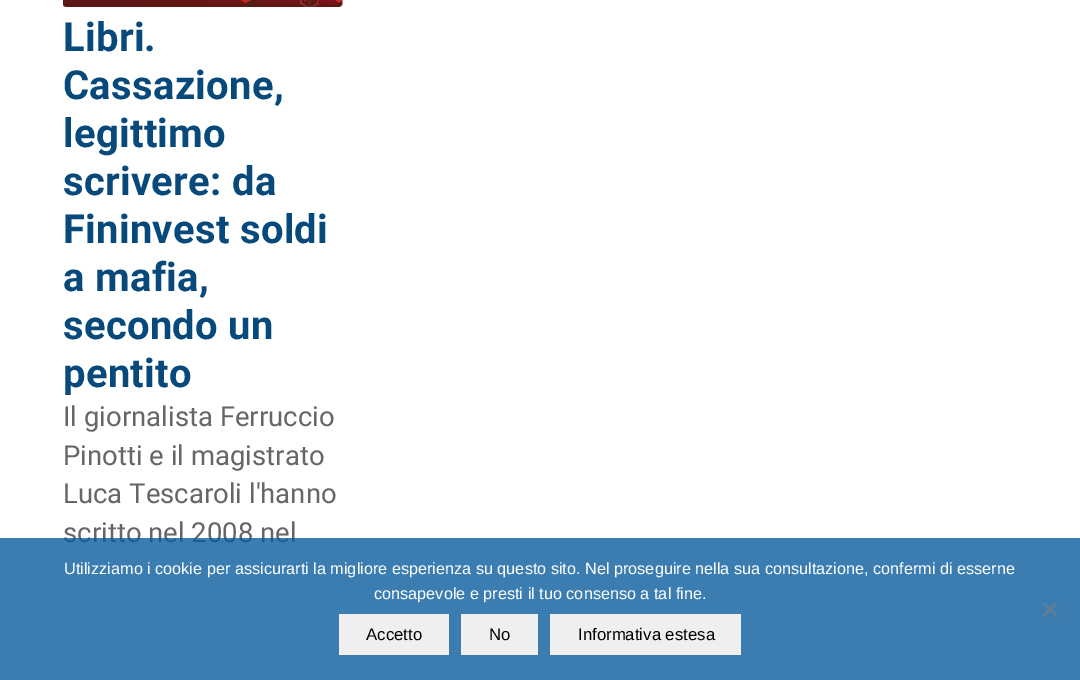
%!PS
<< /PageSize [1080 680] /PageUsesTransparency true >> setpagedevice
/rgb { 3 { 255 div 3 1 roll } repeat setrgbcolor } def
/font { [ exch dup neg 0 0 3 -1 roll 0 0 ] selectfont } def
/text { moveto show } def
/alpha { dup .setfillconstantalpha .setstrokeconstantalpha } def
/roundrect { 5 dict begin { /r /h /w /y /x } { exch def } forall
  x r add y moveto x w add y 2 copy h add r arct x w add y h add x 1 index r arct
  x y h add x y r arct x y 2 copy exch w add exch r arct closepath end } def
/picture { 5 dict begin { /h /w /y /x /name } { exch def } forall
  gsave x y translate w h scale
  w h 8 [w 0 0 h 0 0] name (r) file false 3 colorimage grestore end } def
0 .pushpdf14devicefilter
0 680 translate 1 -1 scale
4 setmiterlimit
255 255 255 rgb
0 0 1080 680 rectfill
252 252 252 rgb
63 -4 280 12 4 roundrect fill
(img_01.rgb) 63 0 280 7 picture
/Roboto-Bold 40 font
8 73 124 rgb
63 51 moveto 0.3 0 (Libri.) ashow
63 99 moveto 0.3 0 (Cassazione,) ashow
63 147 moveto 0.3 0 (legittimo) ashow
63 195 moveto 0.3 0 (scrivere: da) ashow
63 243 moveto 0.3 0 (Fininvest soldi) ashow
63 291 moveto 0.3 0 (a mafia,) ashow
63 339 moveto 0.3 0 (secondo un) ashow
63 387 moveto 0.3 0 (pentito) ashow
/Roboto-Regular 27.5 font
102 102 102 rgb
(Il giornalista Ferruccio) 63 426 text
(Pinotti e il magistrato) 63 465 text
(Luca Tescaroli l'hanno) 63 503 text
(scritto nel 2008 nel) 63 542 text
0.8 alpha
10 92 157 rgb
0 538 1080 142 rectfill
/LiberationSans-Regular 16.25 font
1 alpha
255 255 255 rgb
(Utilizziamo i cookie per assicurarti la migliore esperienza su questo sito. Nel proseguire nella sua consultazione, confermi di esserne) 64 574 text
(consapevole e presti il tuo consenso a tal fine.) 374 599 text
94 126 152 rgb
1055.5 602 moveto 2 1.5 rlineto -13 13.5 rlineto -2 -2 rlineto closepath fill
1042.5 603.5 moveto 2 -1.5 rlineto 13 13 rlineto -2 2 rlineto closepath fill
239 239 239 rgb
339 614 110 41 rectfill
/LiberationSans-Regular 16.75 font
0 0 0 rgb
(Accetto) 366 640 text
239 239 239 rgb
461 614 77 41 rectfill
0 0 0 rgb
(No) 489 640 text
239 239 239 rgb
550 614 191 41 rectfill
0 0 0 rgb
(Informativa estesa) 578 640 text
.poppdf14devicefilter showpage
